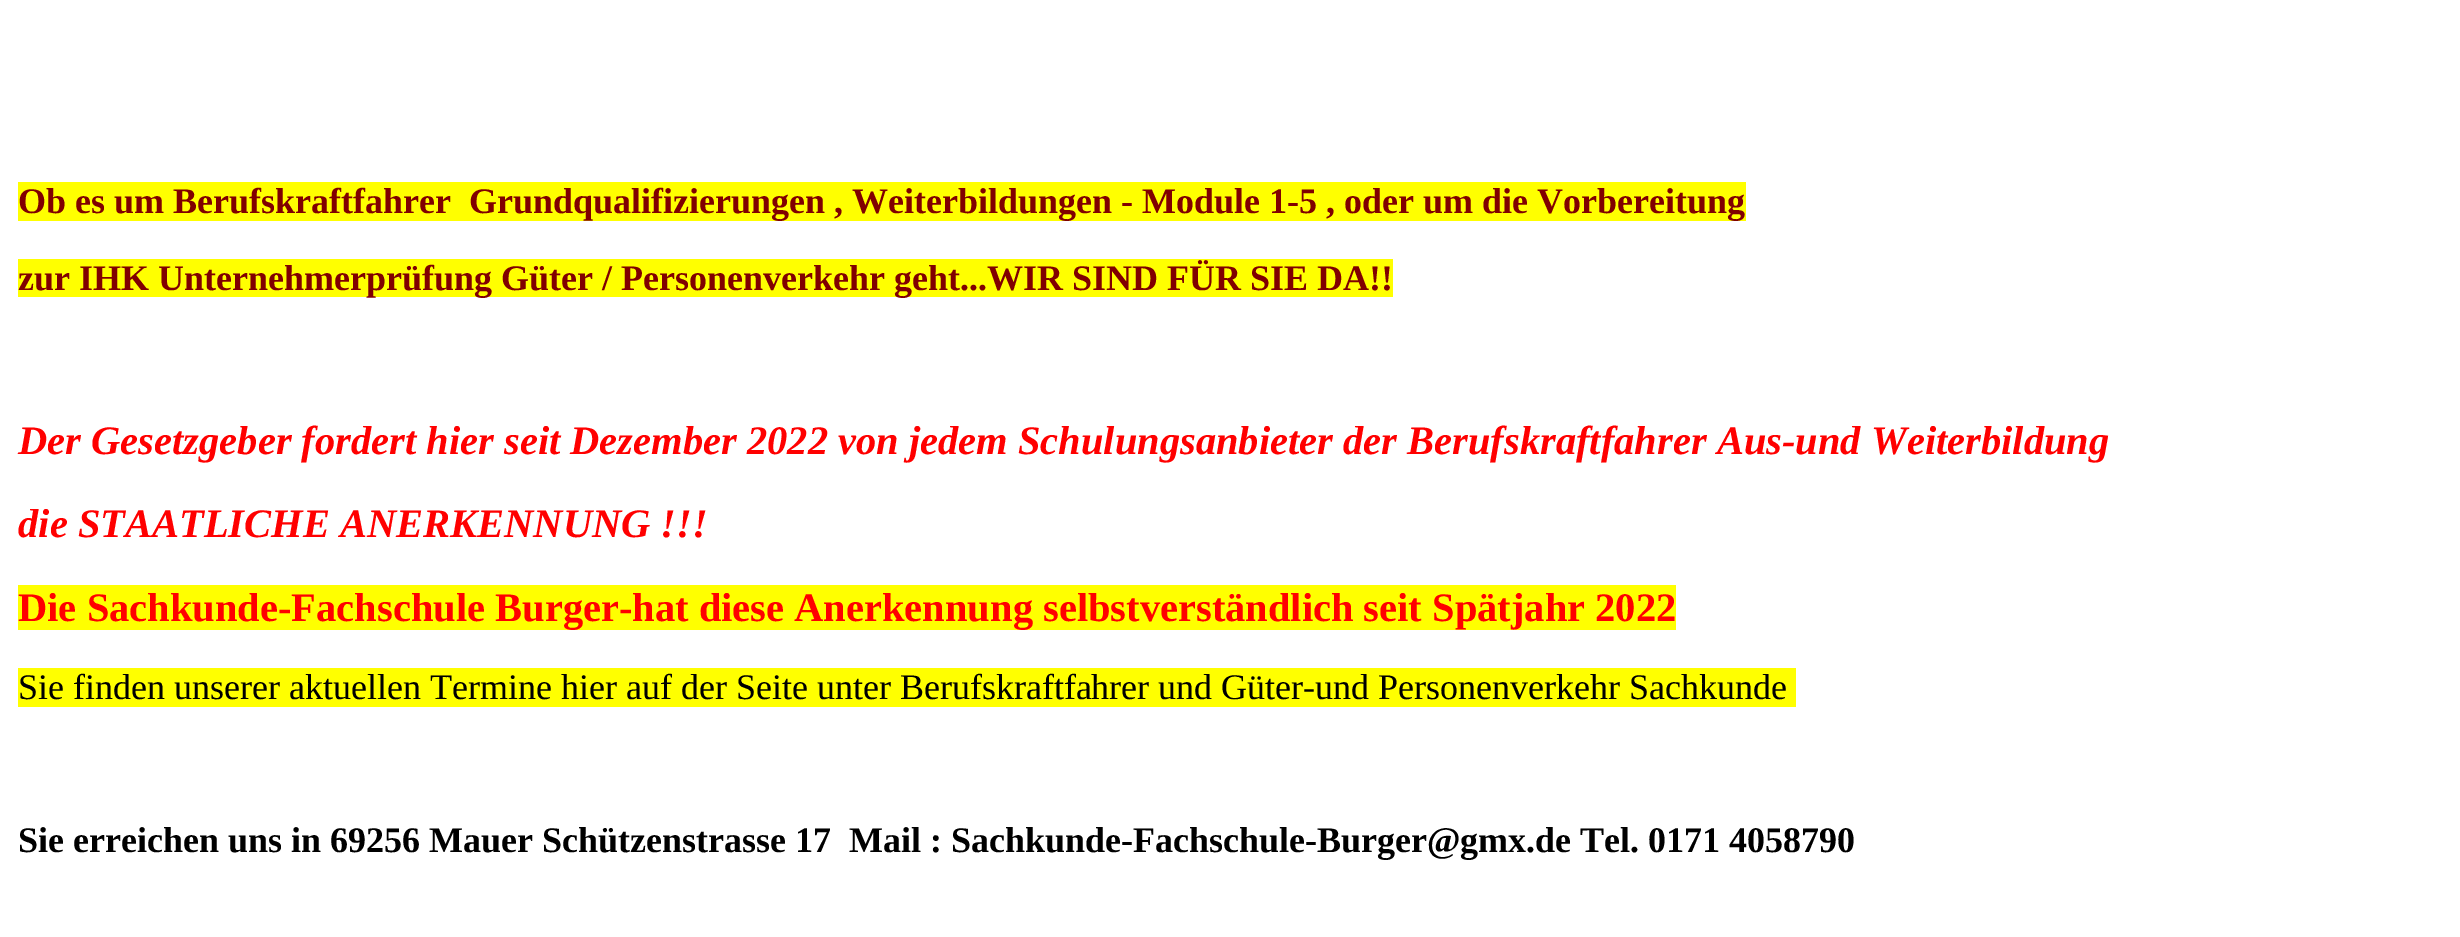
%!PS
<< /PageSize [2460 937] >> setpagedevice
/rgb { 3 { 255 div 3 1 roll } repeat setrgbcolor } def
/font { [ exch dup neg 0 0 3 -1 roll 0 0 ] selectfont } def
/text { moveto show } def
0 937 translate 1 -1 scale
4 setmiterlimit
255 255 255 rgb
0 0 2460 937 rectfill
255 255 0 rgb
18 182 1728 39 rectfill
18 259 1375 38 rectfill
18 585 1658 45 rectfill
18 668 1778 39 rectfill
/LiberationSerif-Bold 36 font
128 0 0 rgb
(Ob es um Berufskraftfahrer  Grundqualifizierungen , Weiterbildungen - Module 1-5 , oder um die Vorbereitung) 18 213 text
(zur IHK Unternehmerprüfung Güter / Personenverkehr geht...WIR SIND FÜR SIE DA!!) 18 290 text
/LiberationSerif-BoldItalic 40.5 font
255 0 0 rgb
(Der Gesetzgeber fordert hier seit Dezember 2022 von jedem Schulungsanbieter der Berufskraftfahrer Aus-und Weiterbildung) 18 454 text
(die STAATLICHE ANERKENNUNG !!!) 18 537 text
/LiberationSerif-Bold 40.5 font
(Die Sachkunde-Fachschule Burger-hat diese Anerkennung selbstverständlich seit Spätjahr 2022) 18 621 text
/LiberationSerif-Regular 36 font
0 0 0 rgb
(Sie finden unserer aktuellen Termine hier auf der Seite unter Berufskraftfahrer und Güter-und Personenverkehr Sachkunde) 18 699 text
/LiberationSerif-Bold 36 font
(Sie erreichen uns in 69256 Mauer Schützenstrasse 17  Mail : Sachkunde-Fachschule-Burger@gmx.de Tel. 0171 4058790) 18 852 text
showpage
